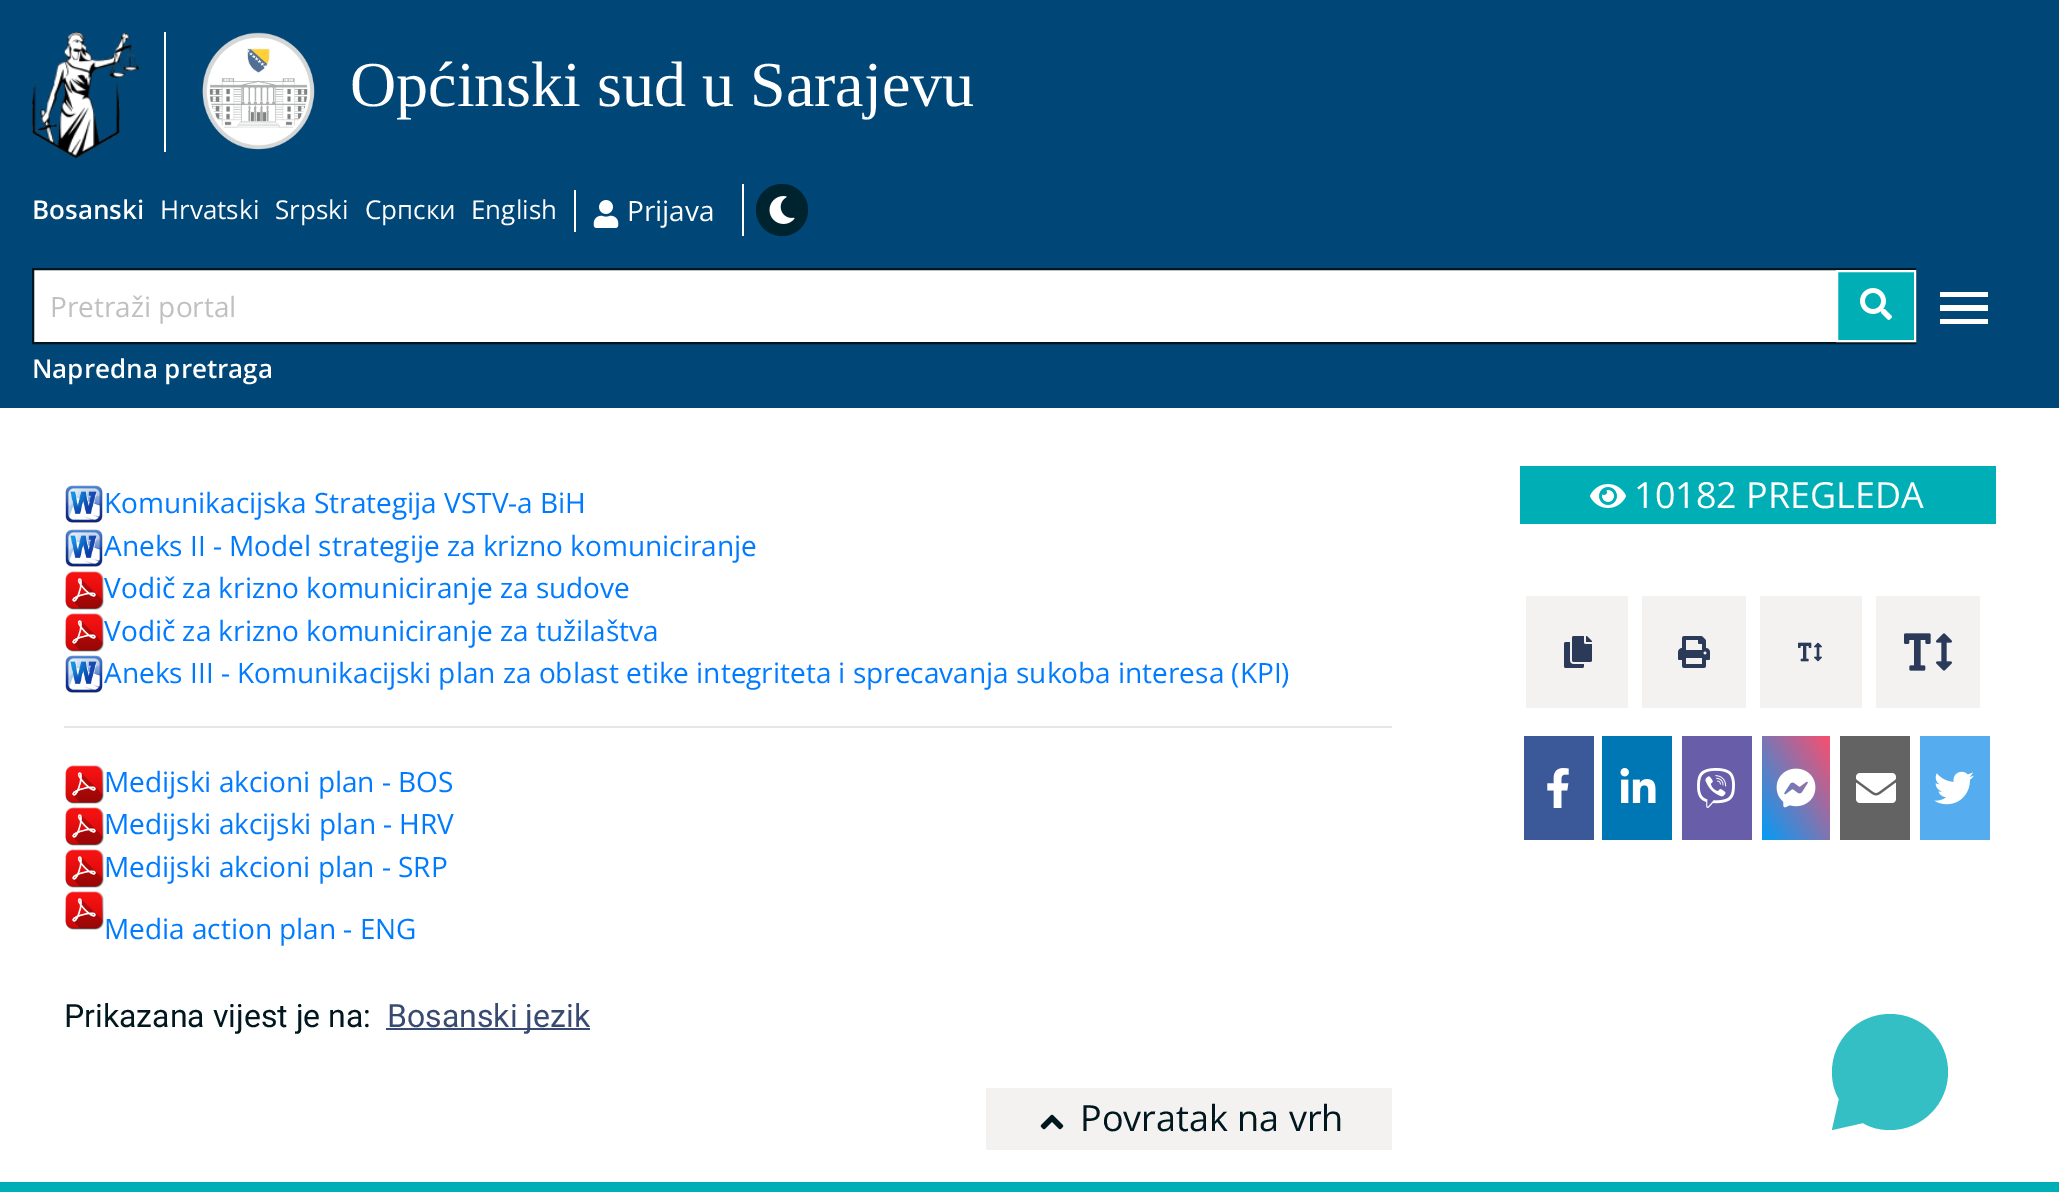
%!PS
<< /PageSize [2059 1192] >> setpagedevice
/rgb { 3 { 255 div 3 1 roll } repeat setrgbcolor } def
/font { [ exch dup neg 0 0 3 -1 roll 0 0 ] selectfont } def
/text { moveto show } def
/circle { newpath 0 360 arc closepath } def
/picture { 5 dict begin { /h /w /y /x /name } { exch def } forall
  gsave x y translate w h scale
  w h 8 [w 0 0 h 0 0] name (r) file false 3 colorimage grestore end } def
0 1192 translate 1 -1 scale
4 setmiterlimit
255 255 255 rgb
0 0 2059 1192 rectfill
0 71 119 rgb
0 0 2059 408 rectfill
(img_01.rgb) 32 32 108 127 picture
255 255 255 rgb
164 32 2 120 rectfill
(img_02.rgb) 202 32 113 118 picture
574 190 2 42 rectfill
(img_03.rgb) 593 200 26 28 picture
742 184 2 52 rectfill
0 35 48 rgb
782 210 26 circle fill
(img_04.rgb) 769 196 26 28 picture
255 255 255 rgb
34 270 1802 72 rectfill
0 23 31 rgb
2 setlinewidth
33 269 1882 74 rectstroke
0 175 181 rgb
1837 271 moveto 78 0 rlineto 0 70 rlineto -78 0 rlineto closepath gsave fill grestore
255 255 255 rgb
stroke
(img_05.rgb) 1860 288 32 32 picture
1940 324 moveto 48 0 rlineto 0 -5 rlineto -48 0 rlineto closepath 1940 311 moveto 48 0 rlineto 0 -6 rlineto -48 0 rlineto closepath 1940 292 moveto 0 5 rlineto 48 0 rlineto 0 -5 rlineto closepath fill
(img_06.rgb) 65 485 38 38 picture
(img_06.rgb) 65 529 38 38 picture
(img_07.rgb) 65 571 39 39 picture
(img_07.rgb) 65 613 39 39 picture
(img_06.rgb) 65 655 38 38 picture
230 230 230 rgb
64 726 1328 2 rectfill
(img_07.rgb) 65 765 39 39 picture
(img_07.rgb) 65 807 39 39 picture
(img_08.rgb) 65 849 39 39 picture
(img_07.rgb) 65 891 39 39 picture
56 74 113 rgb
386 1028 204 2 rectfill
0 175 181 rgb
1520 466 476 58 rectfill
(img_09.rgb) 1590 484 36 24 picture
243 242 241 rgb
1526 596 102 112 rectfill
(img_10.rgb) 1564 636 28 32 picture
1642 596 104 112 rectfill
(img_11.rgb) 1678 636 32 32 picture
1760 596 102 112 rectfill
(img_12.rgb) 1798 642 24 20 picture
1876 596 104 112 rectfill
(img_13.rgb) 1904 633 48 38 picture
59 89 152 rgb
1524 736 70 104 rectfill
(img_14.rgb) 1547 768 22 40 picture
0 119 181 rgb
1602 736 70 104 rectfill
(img_15.rgb) 1620 768 36 35 picture
103 93 169 rgb
1682 736 70 104 rectfill
(img_16.rgb) 1697 768 38 40 picture
gsave 1762 736 moveto 68 0 rlineto 0 104 rlineto -68 0 rlineto closepath clip newpath
<< /ShadingType 2 /ColorSpace /DeviceRGB /Coords [1748 819 1844 757] /Extend [true true] /Function << /FunctionType 2 /Domain [0 1] /C0 [0.004 0.612 0.969] /C1 [0.984 0.31 0.431] /N 1 >> >> shfill grestore
(img_17.rgb) 1776 768 40 40 picture
99 99 99 rgb
1840 736 70 104 rectfill
(img_18.rgb) 1856 773 40 30 picture
85 172 238 rgb
1920 736 70 104 rectfill
(img_19.rgb) 1934 771 40 34 picture
243 242 241 rgb
986 1088 406 62 rectfill
(img_20.rgb) 1040 1114 24 16 picture
51 191 196 rgb
1863 1123 moveto -31 7 rlineto 7 -31 rlineto -5 -8 -7 -17 -7 -27 rcurveto 0 -32 26 -58 58 -58 rcurveto 32 0 58 26 58 58 rcurveto 0 32 -26 58 -58 58 rcurveto -10 0 -19 -2 -27 -7 rcurveto closepath fill
0 175 181 rgb
0 1182 2059 10 rectfill
/LiberationSerif-Regular 64 font
255 255 255 rgb
(Općinski sud u Sarajevu) 350 106 text
/OpenSans-SemiBold 26 font
(Bosanski) 32 219 text
/OpenSans-Regular 26 font
(Hrvatski) 160 219 text
(Srpski) 275 219 text
(Српски) 365 219 text
(English) 471 219 text
/OpenSans-Regular 28 font
(Prijava) 627 221 text
192 192 192 rgb
(Pretraži portal) 50 317 text
/OpenSans-SemiBold 26 font
255 255 255 rgb
(Napredna pretraga) 32 378 text
/OpenSans-Regular 28 font
0 123 255 rgb
(Komunikacijska Strategija VSTV-a BiH) 104 513 text
(Aneks II - Model strategije za krizno komuniciranje) 104 556 text
(Vodič za krizno komuniciranje za sudove) 104 598 text
(Vodič za krizno komuniciranje za tužilaštva) 104 641 text
(Aneks III - Komunikacijski plan za oblast etike integriteta i sprecavanja sukoba interesa \(KPI\)) 104 683 text
(Medijski akcioni plan - BOS) 104 792 text
(Medijski akcijski plan - HRV) 104 834 text
(Medijski akcioni plan - SRP) 104 877 text
(Media action plan - ENG) 104 939 text
/Roboto-Regular 32 font
0 23 31 rgb
(Prikazana vijest je na:) 64 1027 text
56 74 113 rgb
(Bosanski jezik) 387 1027 text
/OpenSans-Regular 36 font
255 255 255 rgb
(10182 PREGLEDA) 1634 508 text
0 23 31 rgb
(Povratak na vrh) 1080 1131 text
showpage
